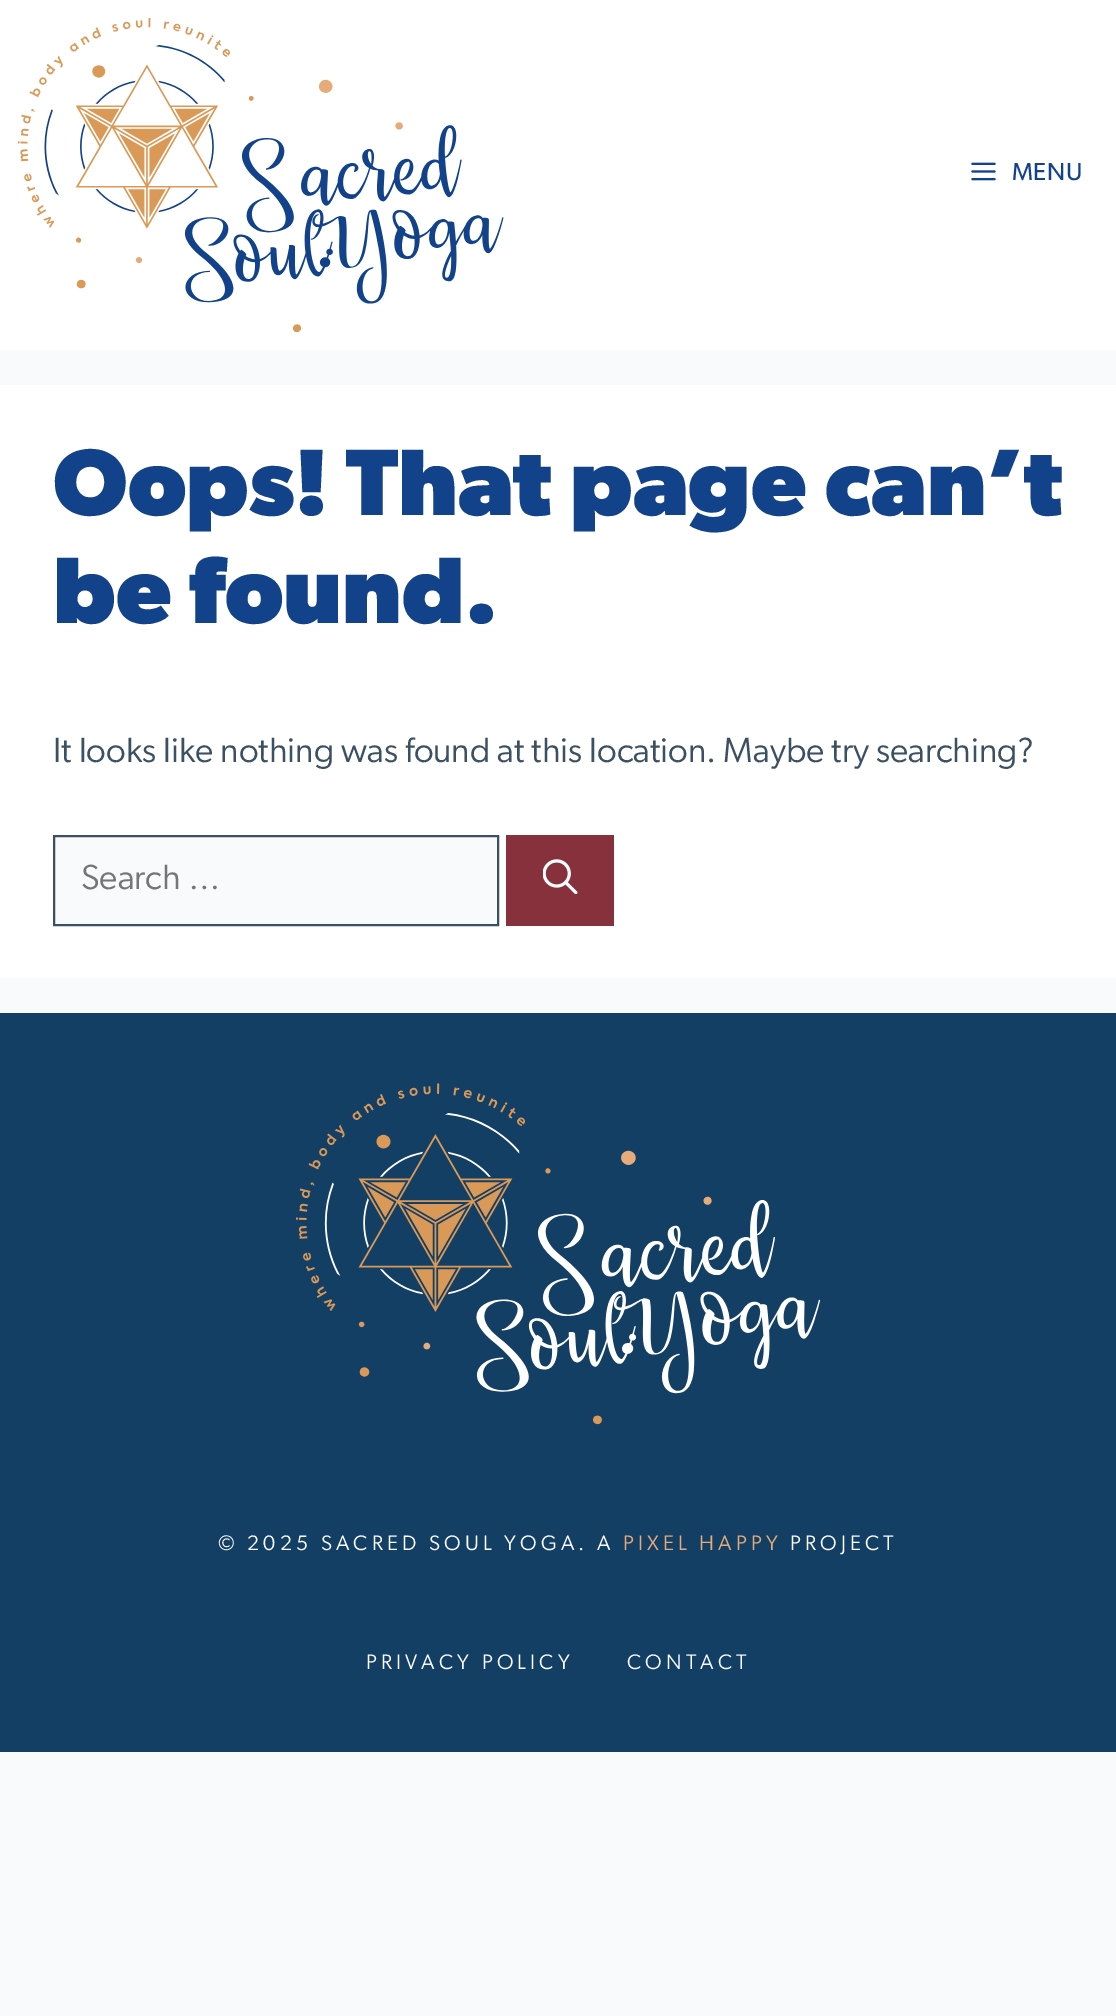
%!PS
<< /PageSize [1116 2016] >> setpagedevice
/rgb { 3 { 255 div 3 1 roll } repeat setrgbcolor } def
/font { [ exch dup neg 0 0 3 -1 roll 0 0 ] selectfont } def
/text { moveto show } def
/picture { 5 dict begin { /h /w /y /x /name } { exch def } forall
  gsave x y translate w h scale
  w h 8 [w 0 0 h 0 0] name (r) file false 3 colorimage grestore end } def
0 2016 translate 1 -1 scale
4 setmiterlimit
249 250 252 rgb
0 0 1116 2016 rectfill
255 255 255 rgb
0 0 1116 350 rectfill
(img_01.rgb) 18 18 486 315 picture
(img_02.rgb) 971 162 25 19 picture
0 385 1116 593 rectfill
249 250 252 rgb
54 836 moveto 444 0 rlineto 0 89 rlineto -444 0 rlineto closepath gsave fill grestore
60 80 99 rgb
2 setlinewidth
stroke
134 49 60 rgb
506 835 108 91 rectfill
(img_03.rgb) 543 859 35 35 picture
20 63 101 rgb
0 1013 1116 739 rectfill
(img_04.rgb) 296 1083 525 342 picture
/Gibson-Regular 24.5 font
18 66 138 rgb
1012 180 moveto 0.5 0 (MENU) ashow
/Gibson-Bold 94.5 font
(Oops! That page can’t) 53 515 text
(be found.) 53 623 text
/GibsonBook-Regular 35 font
60 80 99 rgb
(It looks like nothing was found at this location. Maybe try searching?) 53 762 text
117 117 117 rgb
(Search …) 81 889 text
/GibsonBook-Regular 21 font
255 255 255 rgb
218 1550 moveto 4.2 0 (© 2025 SACRED SOUL YOGA. A) ashow
231 171 121 rgb
623 1550 moveto 4.2 0 (PIXEL HAPPY) ashow
255 255 255 rgb
790 1550 moveto 4.2 0 (PROJECT) ashow
366 1669 moveto 4.2 0 (PRIVACY POLICY) ashow
249 250 252 rgb
627 1669 moveto 4.2 0 (CONTACT) ashow
showpage
